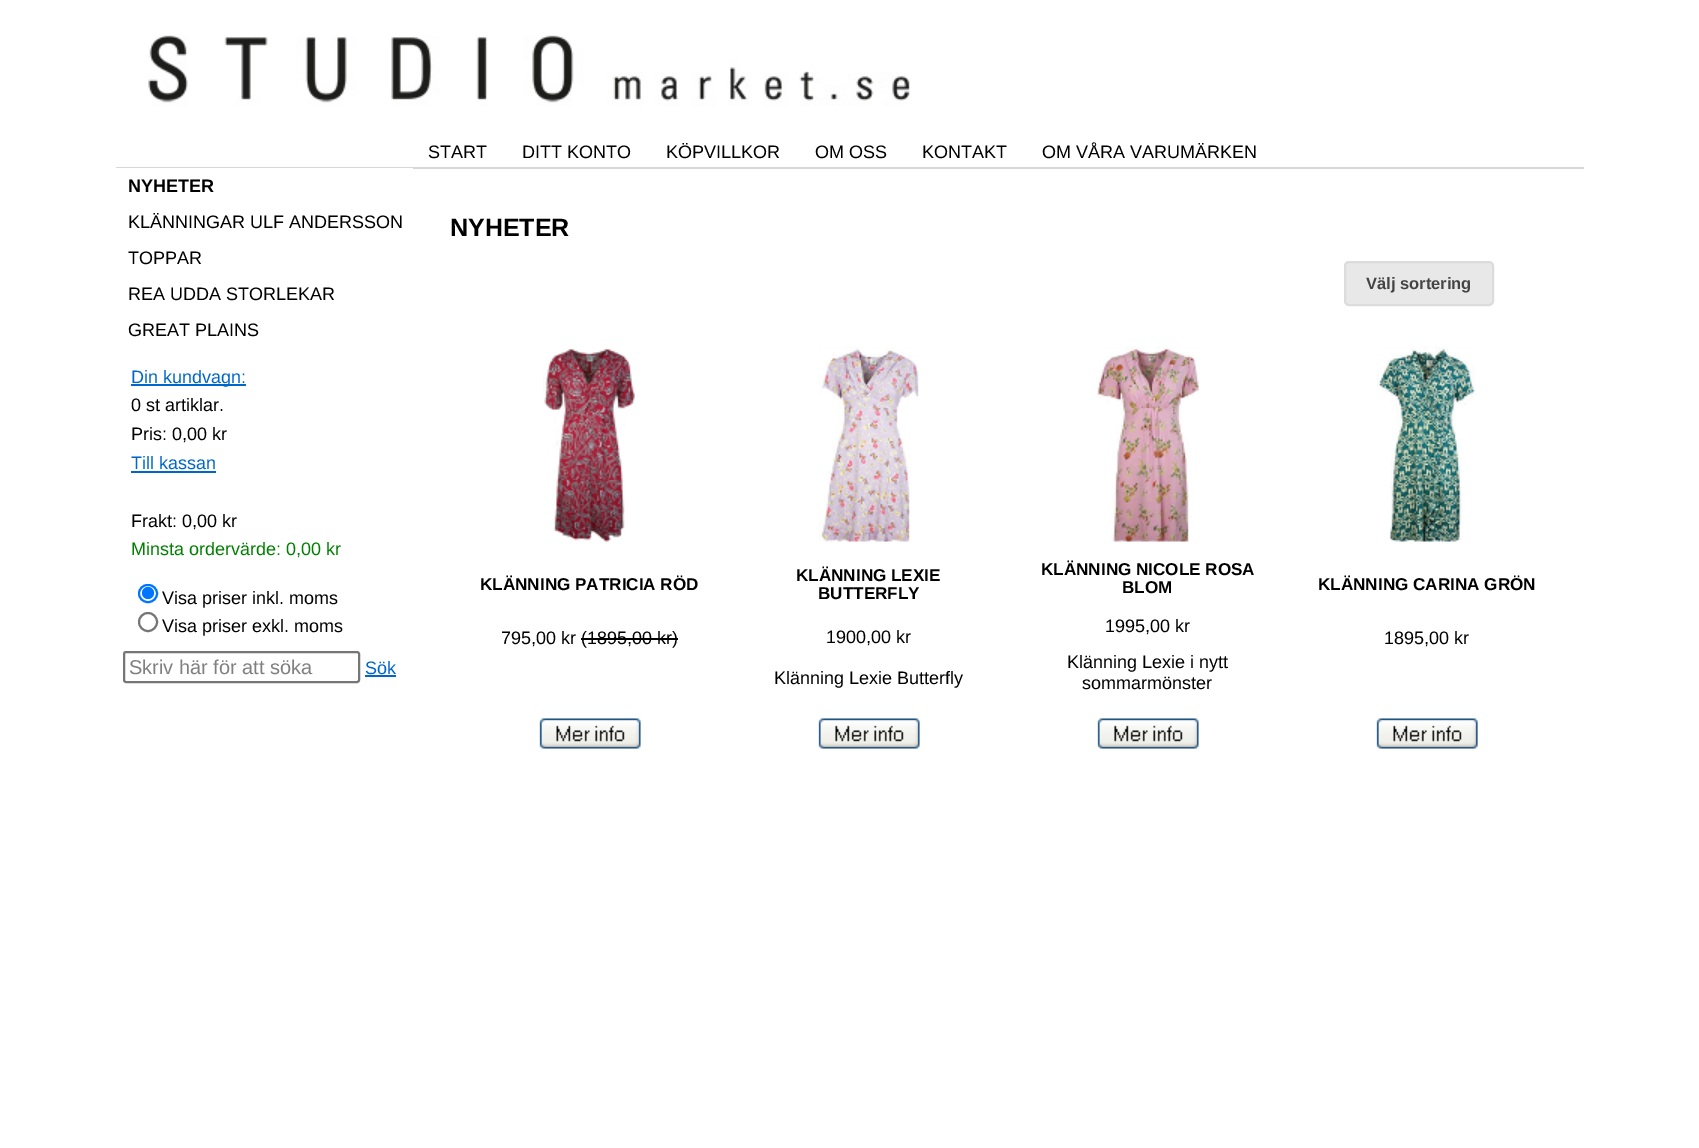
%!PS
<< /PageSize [1699 1148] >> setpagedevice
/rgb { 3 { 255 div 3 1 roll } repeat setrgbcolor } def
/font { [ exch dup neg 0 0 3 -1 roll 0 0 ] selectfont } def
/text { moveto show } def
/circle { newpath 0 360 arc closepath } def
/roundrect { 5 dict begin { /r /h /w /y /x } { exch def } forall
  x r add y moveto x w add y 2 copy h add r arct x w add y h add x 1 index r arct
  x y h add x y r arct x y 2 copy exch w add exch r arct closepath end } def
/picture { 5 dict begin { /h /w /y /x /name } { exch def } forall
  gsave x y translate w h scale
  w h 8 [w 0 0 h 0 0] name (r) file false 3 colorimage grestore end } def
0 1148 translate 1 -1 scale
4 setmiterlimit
255 255 255 rgb
0 0 1699 1148 rectfill
(img_01.rgb) 148 35 762 71 picture
216 216 216 rgb
116 167 1468 2 rectfill
255 255 255 rgb
116 168 297 1 rectfill
0 102 204 rgb
131 384 115 2 rectfill
131 471 85 2 rectfill
0 117 255 rgb
2 setlinewidth
139 585 18 17 8.5 roundrect stroke
148 593 6 circle fill
118 118 118 rgb
148 622 9 circle stroke
124 652 235 30 2 roundrect stroke
0 102 204 rgb
365 675 31 2 rectfill
232 232 232 rgb
1345 262 148 43 4 roundrect gsave fill grestore
220 220 220 rgb
stroke
(img_02.rgb) 543 348 92 194 picture
0 0 0 rgb
581 638 97 2 rectfill
(img_03.rgb) 539 718 102 31 picture
(img_04.rgb) 819 347 100 195 picture
(img_05.rgb) 818 718 102 31 picture
(img_06.rgb) 1096 346 104 196 picture
(img_05.rgb) 1097 718 102 31 picture
(img_07.rgb) 1377 346 98 196 picture
(img_08.rgb) 1376 718 102 31 picture
/LiberationSans-Regular 18 font
(START) 428 158 text
(DITT KONTO) 522 158 text
(KÖPVILLKOR) 666 158 text
(OM OSS) 815 158 text
(KONTAKT) 922 158 text
(OM VÅRA VARUMÄRKEN) 1042 158 text
/LiberationSans-Bold 18 font
(NYHETER) 128 192 text
/LiberationSans-Regular 18 font
(KLÄNNINGAR ULF ANDERSSON) 128 228 text
(TOPPAR) 128 264 text
(REA UDDA STORLEKAR) 128 300 text
(GREAT PLAINS) 128 336 text
0 102 204 rgb
(Din kundvagn:) 131 383 text
0 0 0 rgb
(0 st artiklar.) 131 411 text
(Pris: 0,00 kr) 131 440 text
0 102 204 rgb
(Till kassan) 131 469 text
0 0 0 rgb
(Frakt: 0,00 kr) 131 527 text
0 128 0 rgb
(Minsta ordervärde: 0,00 kr) 131 555 text
0 0 0 rgb
(Visa priser inkl. moms) 162 604 text
(Visa priser exkl. moms) 162 632 text
/LiberationSans-Regular 20 font
128 128 128 rgb
(Skriv här för att söka) 129 674 text
/LiberationSans-Regular 18 font
0 102 204 rgb
(Sök) 365 674 text
/LiberationSans-Bold 25 font
0 0 0 rgb
(NYHETER) 450 236 text
/LiberationSans-Bold 16.5 font
68 68 68 rgb
(Välj sortering) 1366 289 text
/LiberationSans-Bold 17.1 font
0 0 0 rgb
(KLÄNNING PATRICIA RÖD) 480 590 text
/LiberationSans-Regular 18 font
(795,00 kr \(1895,00 kr\)) 501 644 text
/LiberationSans-Bold 17.1 font
(KLÄNNING LEXIE) 796 581 text
(BUTTERFLY) 818 599 text
/LiberationSans-Regular 18 font
(1900,00 kr) 826 643 text
(Klänning Lexie Butterfly) 774 684 text
/LiberationSans-Bold 17.1 font
(KLÄNNING NICOLE ROSA) 1041 575 text
(BLOM) 1122 593 text
/LiberationSans-Regular 18 font
(1995,00 kr) 1105 632 text
(Klänning Lexie i nytt) 1067 668 text
(sommarmönster) 1082 689 text
/LiberationSans-Bold 17.1 font
(KLÄNNING CARINA GRÖN) 1318 590 text
/LiberationSans-Regular 18 font
(1895,00 kr) 1384 644 text
showpage
